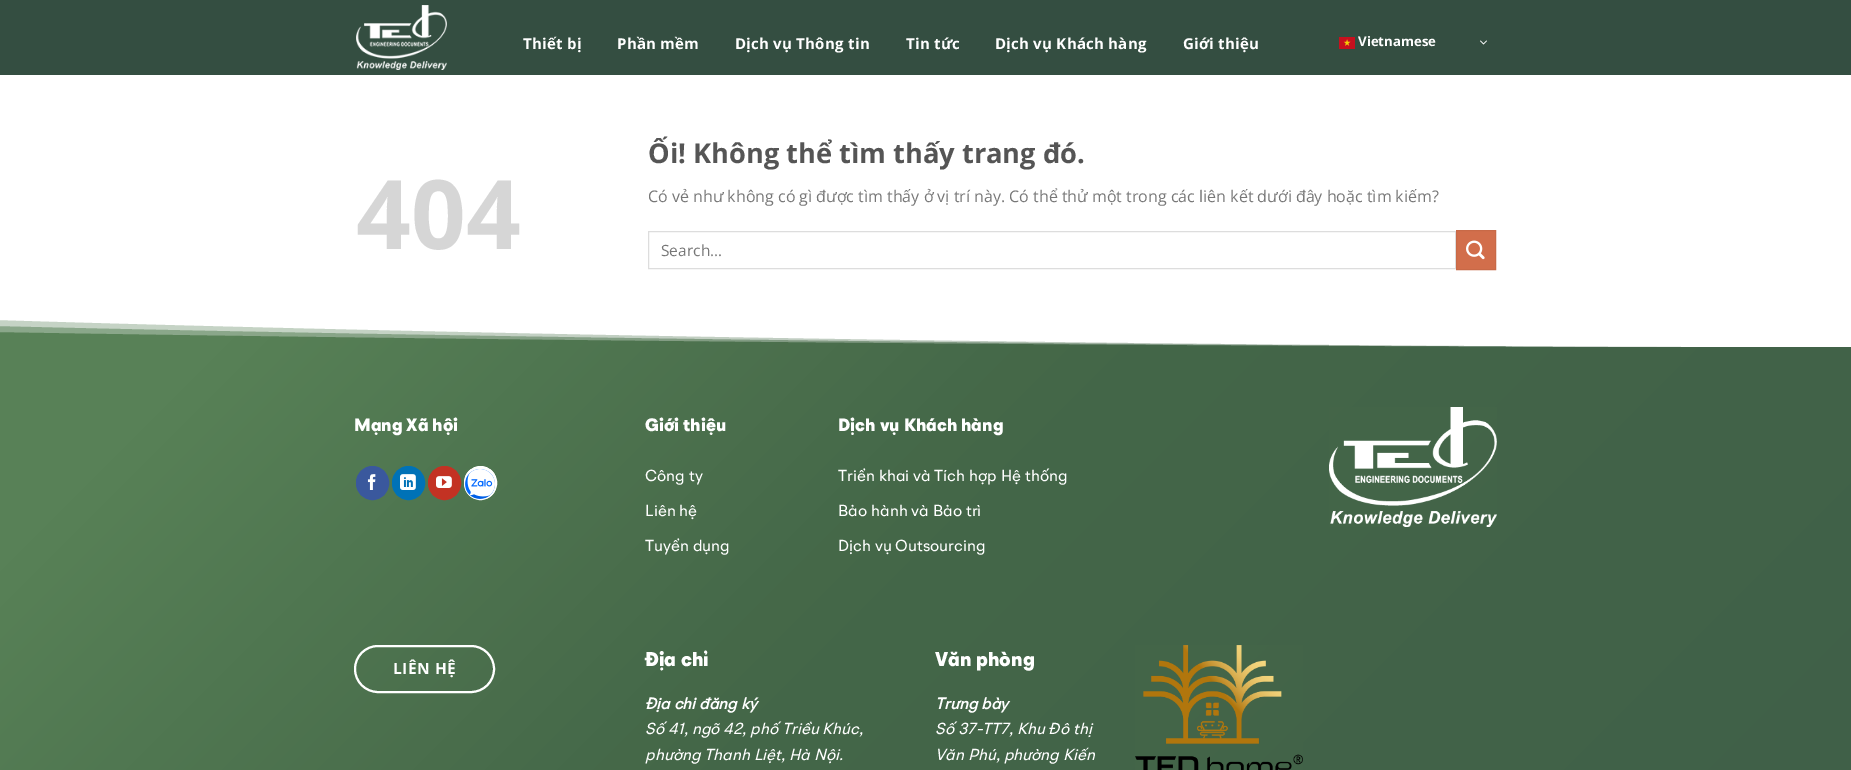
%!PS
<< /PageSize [1851 770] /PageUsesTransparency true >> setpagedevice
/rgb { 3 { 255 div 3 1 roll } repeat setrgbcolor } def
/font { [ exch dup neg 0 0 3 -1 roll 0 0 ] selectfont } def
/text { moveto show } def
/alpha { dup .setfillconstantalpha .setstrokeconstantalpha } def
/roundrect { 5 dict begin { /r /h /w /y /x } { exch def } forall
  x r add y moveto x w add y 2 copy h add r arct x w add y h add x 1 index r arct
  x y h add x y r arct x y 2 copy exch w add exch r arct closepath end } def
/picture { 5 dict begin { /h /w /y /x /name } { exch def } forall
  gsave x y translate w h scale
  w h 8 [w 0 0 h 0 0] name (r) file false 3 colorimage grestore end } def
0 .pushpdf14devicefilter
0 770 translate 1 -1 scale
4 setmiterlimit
255 255 255 rgb
0 0 1851 770 rectfill
52 78 65 rgb
0 0 1851 75 rectfill
(img_01.rgb) 356 5 91 65 picture
(img_02.rgb) 1339 37 16 12 picture
(img_03.rgb) 1480 40 7 5 picture
221 221 221 rgb
648.5 231.5 807 37 rectstroke
210 110 75 rgb
1456.5 230.5 moveto 39 0 rlineto 0 39 rlineto -39 0 rlineto closepath gsave fill grestore
200 105 71 rgb
stroke
(img_04.rgb) 1466 240 19 20 picture
gsave 0 320 moveto 1851 0 rlineto 0 450 rlineto -1851 0 rlineto closepath clip newpath
<< /ShadingType 2 /ColorSpace /DeviceRGB /Coords [324 -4 1527 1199] /Extend [true true] /Function << /FunctionType 3 /Domain [0 1] /Functions [<< /FunctionType 2 /Domain [0 1] /C0 [0.345 0.506 0.341] /C1 [0.345 0.506 0.341] /N 1 >> << /FunctionType 2 /Domain [0 1] /C0 [0.345 0.506 0.341] /C1 [0.267 0.404 0.282] /N 1 >> << /FunctionType 2 /Domain [0 1] /C0 [0.267 0.404 0.282] /C1 [0.251 0.373 0.282] /N 1 >>] /Bounds [0.1 0.46] /Encode [0 1 0 1 0 1] >> >> shfill grestore
0.3 alpha
255 255 255 rgb
0 320 moveto 0 12 rlineto 0 0 829 15 1851 15 rcurveto 0 -27 rlineto closepath fill
0.5 alpha
0 320 moveto 0 6 rlineto 0 0 829 21 1851 21 rcurveto 0 -27 rlineto closepath fill
1 alpha
0 320 moveto 0 0 829 27 1851 27 rcurveto 0 -27 rlineto closepath fill
58 88 157 rgb
356.5 466.5 32 33 16 roundrect gsave fill grestore
stroke
(img_05.rgb) 367 474 9 16 picture
0 114 183 rgb
392.5 466.5 32 33 16 roundrect gsave fill grestore
stroke
(img_06.rgb) 400 474 16 16 picture
195 50 35 rgb
428.5 466.5 32 33 16 roundrect gsave fill grestore
stroke
(img_07.rgb) 436 476 16 12 picture
255 255 255 rgb
464.5 466.5 32 33 16 roundrect gsave fill grestore
stroke
(img_08.rgb) 465 469 30 30 picture
(img_09.rgb) 1329 407 168 120 picture
2 setlinewidth
355 646 139 46 23 roundrect stroke
(img_10.rgb) 1135 645 168 125 picture
/OpenSans-Bold 15 font
523 49 moveto 0.25 0 (Thiết bị) ashow
617 49 moveto 0.25 0 (Phần mềm) ashow
735 49 moveto 0.25 0 (Dịch vụ Thông tin) ashow
906 49 moveto 0.25 0 (Tin tức) ashow
995 49 moveto 0.25 0 (Dịch vụ Khách hàng) ashow
1183 49 moveto 0.25 0 (Giới thiệu) ashow
/OpenSans-Bold 13.25 font
(Vietnamese) 1358 46 text
/OpenSans-Bold 96 font
214 214 214 rgb
(404) 356 249 text
/OpenSans-Bold 27.25 font
85 85 85 rgb
(Ối! Không thể tìm thấy trang đó.) 648 163 text
/OpenSans-Regular 16 font
119 119 119 rgb
(Có vẻ như không có gì được tìm thấy ở vị trí này. Có thể thử một trong các liên kết dưới đây hoặc tìm kiếm?) 648 202 text
/OpenSans-Regular 15.5 font
(Search…) 661 256 text
/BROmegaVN-Black 18 font
255 255 255 rgb
(Mạng Xã hội) 354 431 text
(Giới thiệu) 645 431 text
/BROmegaVN-Regular 16 font
(Công ty) 645 481 text
(Liên hệ) 645 516 text
(Tuyển dụng) 645 551 text
/BROmegaVN-Black 18 font
(Dịch vụ Khách hàng) 838 431 text
/BROmegaVN-Regular 16 font
(Triển khai và Tích hợp Hệ thống) 838 481 text
(Bảo hành và Bảo trì) 838 516 text
(Dịch vụ Outsourcing) 838 551 text
/OpenSans-Bold 15.5 font
393 674 moveto 0.5 0 (LIÊN HỆ) ashow
/BROmegaVN-Black 20 font
(Địa chỉ) 645 666 text
/BROmegaVN-BoldItalic 16 font
(Địa chỉ đăng ký) 645 709 text
/BROmegaVN-Italic 16 font
(Số 41, ngõ 42, phố Triều Khúc,) 645 734 text
(phường Thanh Liệt, Hà Nội.) 645 760 text
/BROmegaVN-Black 20 font
(Văn phòng) 935 666 text
/BROmegaVN-BoldItalic 16 font
(Trưng bày) 935 709 text
/BROmegaVN-Italic 16 font
(Số 37-TT7, Khu Đô thị) 935 734 text
(Văn Phú, phường Kiến) 935 760 text
.poppdf14devicefilter showpage
